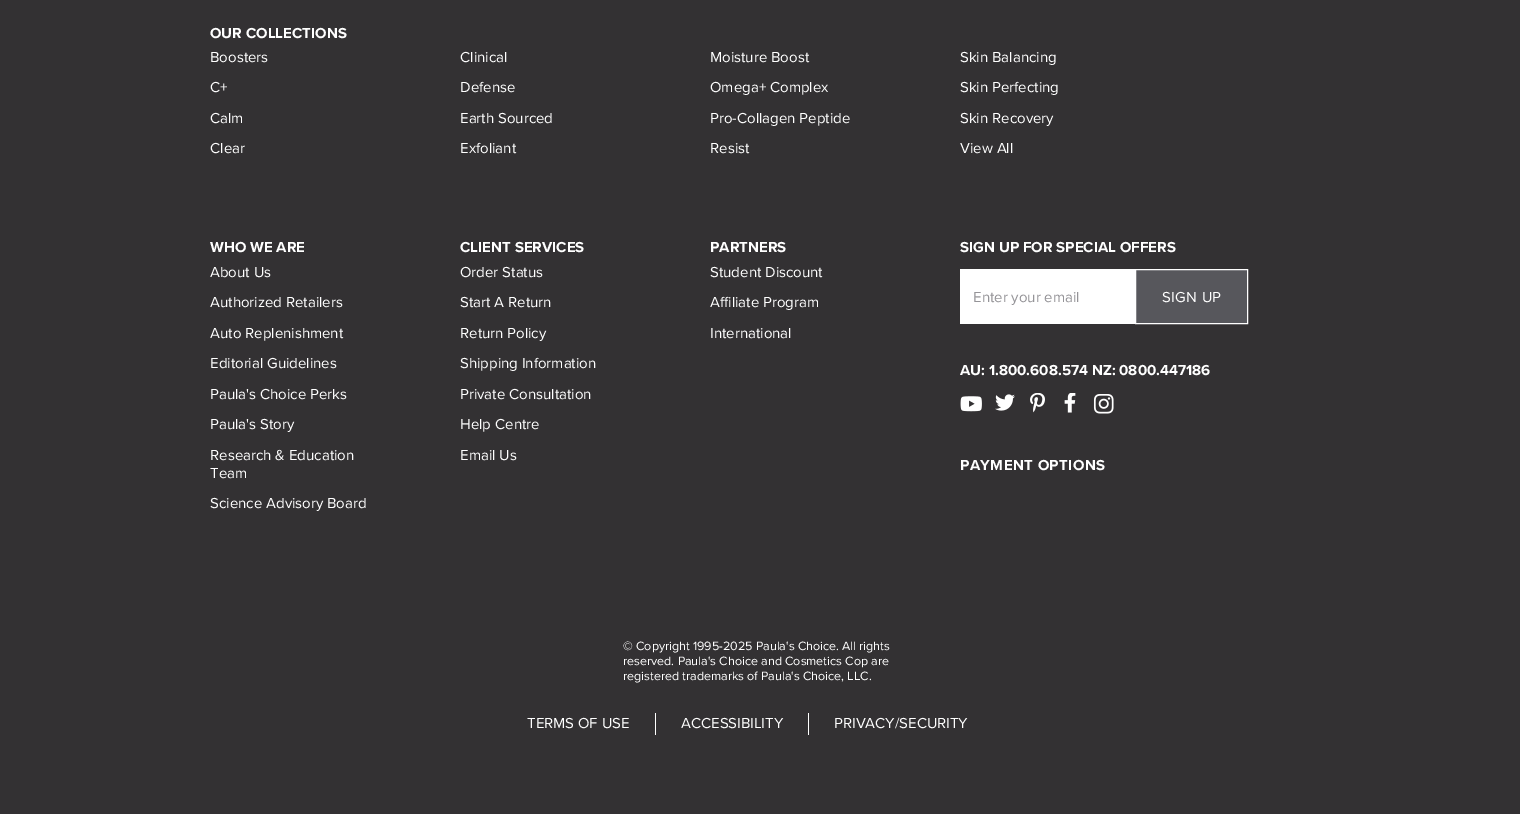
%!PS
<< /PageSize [1520 814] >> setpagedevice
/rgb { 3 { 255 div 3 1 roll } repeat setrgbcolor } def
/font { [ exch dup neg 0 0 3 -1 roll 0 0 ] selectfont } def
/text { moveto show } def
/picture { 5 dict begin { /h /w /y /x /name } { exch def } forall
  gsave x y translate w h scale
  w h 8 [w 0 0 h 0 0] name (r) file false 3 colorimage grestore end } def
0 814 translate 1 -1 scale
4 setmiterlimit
51 49 51 rgb
0 0 1520 814 rectfill
255 255 255 rgb
960 269 175 55 rectfill
87 87 92 rgb
1135.5 269.5 moveto 112 0 rlineto 0 54 rlineto -112 0 rlineto closepath gsave fill grestore
255 255 255 rgb
stroke
(img_01.rgb) 960 396 22 16 picture
(img_02.rgb) 995 394 20 17 picture
(img_03.rgb) 1030 393 15 20 picture
(img_04.rgb) 1064 393 12 20 picture
(img_05.rgb) 1093 394 21 20 picture
655 713 1 22 rectfill
808 713 1 22 rectfill
/ProximaNova-Bold 15 font
(OUR COLLECTIONS) 210 38 text
/ProximaNova-Regular 15 font
(Boosters) 210 62 text
(C+) 210 92 text
(Calm) 210 123 text
(Clear) 210 153 text
(Clinical) 460 62 text
(Defense) 460 92 text
(Earth Sourced) 460 123 text
(Exfoliant) 460 153 text
(Moisture Boost) 710 62 text
(Omega+ Complex) 710 92 text
(Pro-Collagen Peptide) 710 123 text
(Resist) 710 153 text
(Skin Balancing) 960 62 text
(Skin Perfecting) 960 92 text
(Skin Recovery) 960 123 text
(View All) 960 153 text
/ProximaNova-Bold 15 font
(WHO WE ARE) 210 252 text
/ProximaNova-Regular 15 font
(About Us) 210 277 text
(Authorized Retailers) 210 307 text
(Auto Replenishment) 210 338 text
(Editorial Guidelines) 210 368 text
(Paula's Choice Perks) 210 399 text
(Paula's Story) 210 429 text
(Research & Education) 210 460 text
(Team) 210 478 text
(Science Advisory Board) 210 508 text
/ProximaNova-Bold 15 font
(CLIENT SERVICES) 460 252 text
/ProximaNova-Regular 15 font
(Order Status) 460 277 text
(Start A Return) 460 307 text
(Return Policy) 460 338 text
(Shipping Information) 460 368 text
(Private Consultation) 460 399 text
(Help Centre) 460 429 text
(Email Us) 460 460 text
/ProximaNova-Bold 15 font
(PARTNERS) 710 252 text
/ProximaNova-Regular 15 font
(Student Discount) 710 277 text
(Affiliate Program) 710 307 text
(International) 710 338 text
/ProximaNova-Bold 15 font
(SIGN UP FOR SPECIAL OFFERS) 960 252 text
/ProximaNova-Regular 15 font
149 148 152 rgb
(Enter your email) 973 302 text
255 255 255 rgb
1162 302 moveto 0.4 0 (SIGN UP) ashow
/ProximaNova-Bold 15 font
(AU: 1.800.608.574 NZ: 0800.447186) 960 375 text
960 470 moveto 0.4 0 (PAYMENT OPTIONS) ashow
/ProximaNova-Regular 12.5 font
(© Copyright 1995-2025 Paula's Choice. All rights) 623 650 text
(reserved. Paula's Choice and Cosmetics Cop are) 623 665 text
(registered trademarks of Paula's Choice, LLC.) 623 680 text
/ProximaNova-Regular 15 font
(TERMS OF USE) 527 728 text
(ACCESSIBILITY) 681 728 text
(PRIVACY/SECURITY) 834 728 text
showpage
